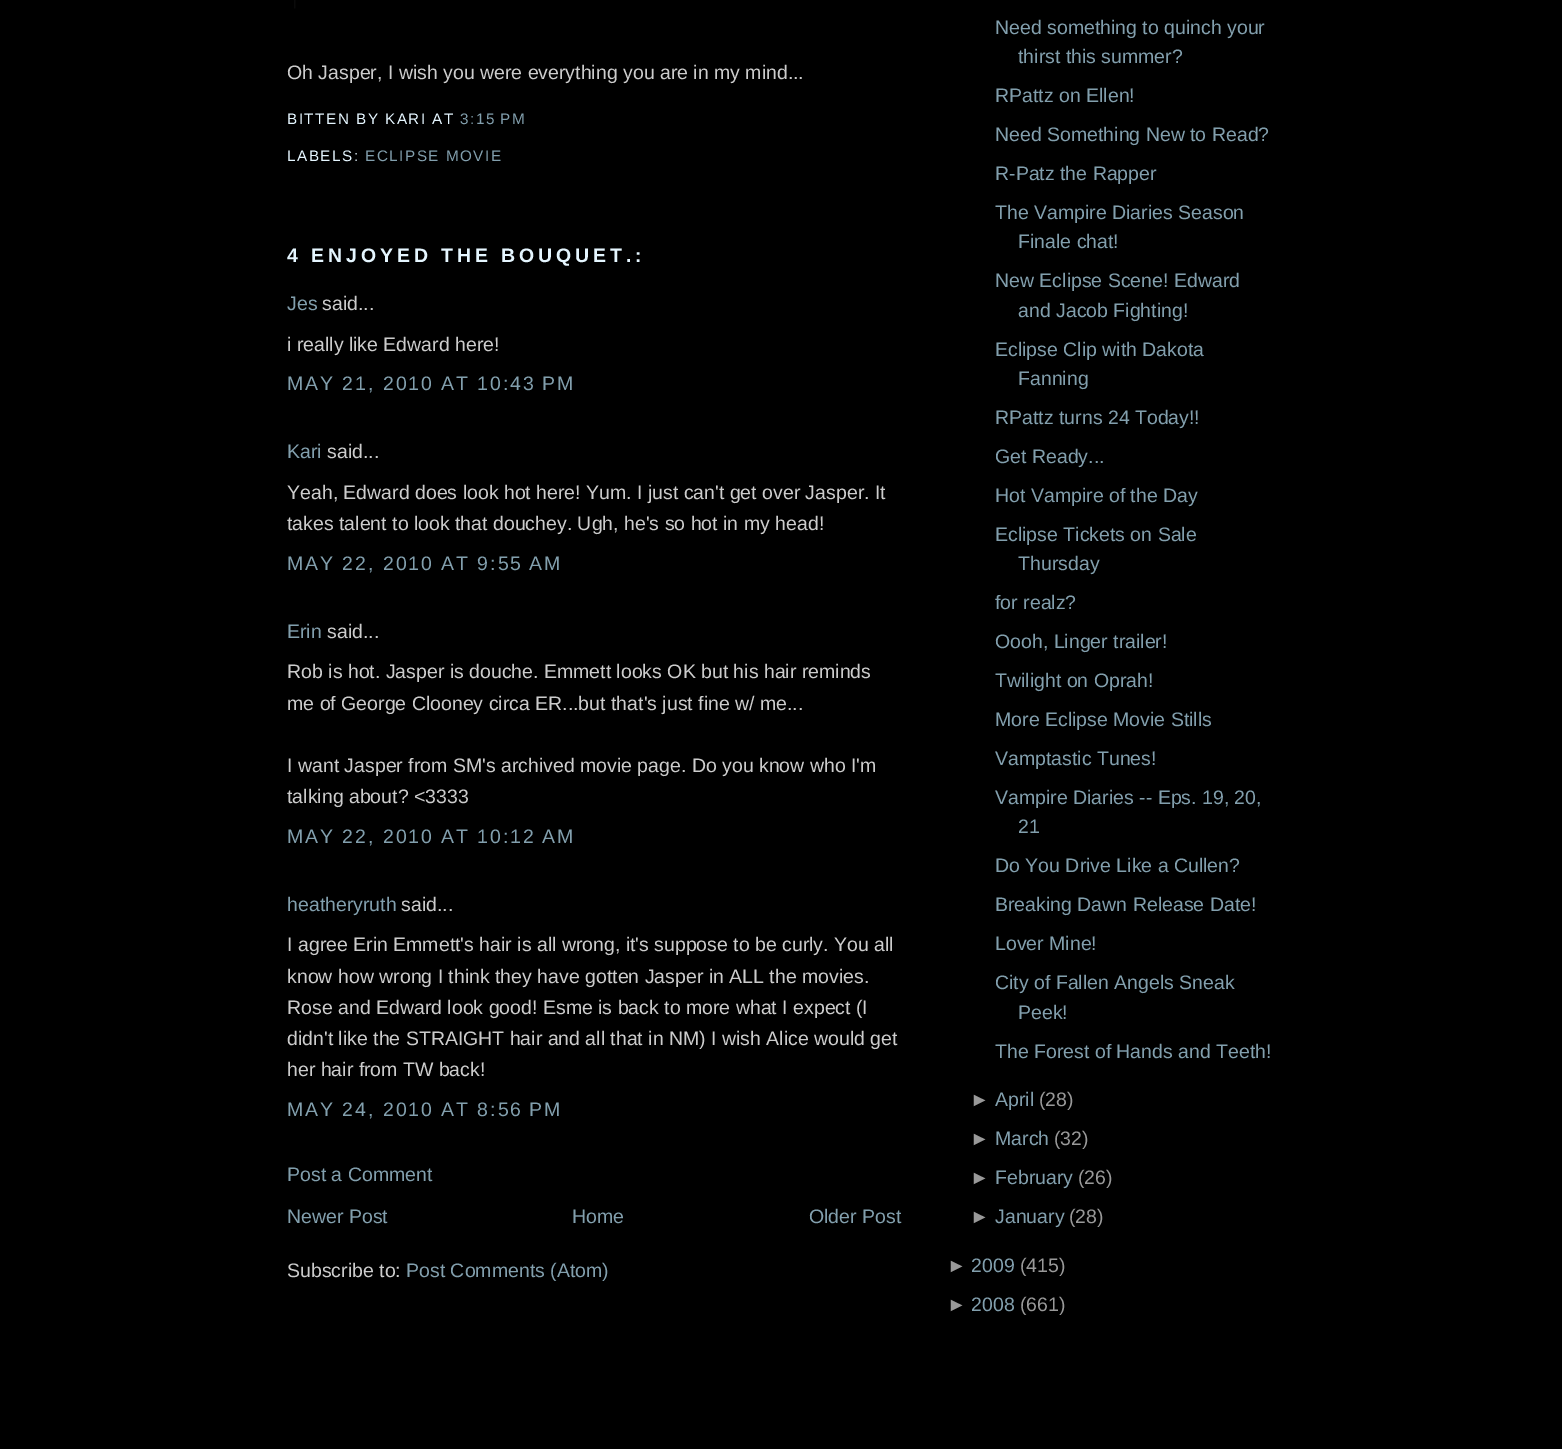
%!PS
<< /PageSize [1562 1449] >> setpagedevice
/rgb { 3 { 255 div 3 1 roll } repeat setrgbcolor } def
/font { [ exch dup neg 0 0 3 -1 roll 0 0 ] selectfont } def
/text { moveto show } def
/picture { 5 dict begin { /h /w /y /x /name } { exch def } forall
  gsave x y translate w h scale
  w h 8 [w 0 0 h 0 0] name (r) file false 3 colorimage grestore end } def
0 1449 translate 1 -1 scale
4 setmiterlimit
0 0 0 rgb
0 0 1562 1449 rectfill
(img_01.rgb) 294 0 2 9 picture
/LiberationSans-Regular 19.5 font
204 204 204 rgb
(Oh Jasper, I wish you were everything you are in my mind...) 287 79 text
/LiberationSans-Regular 15.25 font
229 246 255 rgb
287 124 moveto 1.5 0 (BITTEN BY KARI AT) ashow
130 159 173 rgb
460 124 moveto 1.5 0 (3:15 PM) ashow
229 246 255 rgb
287 161 moveto 1.5 0 (LABELS:) ashow
130 159 173 rgb
365 161 moveto 1.5 0 (ECLIPSE MOVIE) ashow
/LiberationSans-Bold 19.5 font
229 246 255 rgb
287 262 moveto 3.9 0 (4 ENJOYED THE BOUQUET.:) ashow
/LiberationSans-Regular 19.5 font
130 159 173 rgb
(Jes) 287 310 text
204 204 204 rgb
(said...) 322 310 text
(i really like Edward here!) 287 351 text
130 159 173 rgb
287 390 moveto 1.95 0 (MAY 21, 2010 AT 10:43 PM) ashow
(Kari) 287 458 text
204 204 204 rgb
(said...) 327 458 text
(Yeah, Edward does look hot here! Yum. I just can't get over Jasper. It) 287 499 text
(takes talent to look that douchey. Ugh, he's so hot in my head!) 287 530 text
130 159 173 rgb
287 570 moveto 1.95 0 (MAY 22, 2010 AT 9:55 AM) ashow
(Erin) 287 638 text
204 204 204 rgb
(said...) 327 638 text
(Rob is hot. Jasper is douche. Emmett looks OK but his hair reminds) 287 678 text
(me of George Clooney circa ER...but that's just fine w/ me...) 287 710 text
(I want Jasper from SM's archived movie page. Do you know who I'm) 287 772 text
(talking about? <3333) 287 803 text
130 159 173 rgb
287 843 moveto 1.95 0 (MAY 22, 2010 AT 10:12 AM) ashow
(heatheryruth) 287 911 text
204 204 204 rgb
(said...) 401 911 text
(I agree Erin Emmett's hair is all wrong, it's suppose to be curly. You all) 287 951 text
(know how wrong I think they have gotten Jasper in ALL the movies.) 287 983 text
(Rose and Edward look good! Esme is back to more what I expect \(I) 287 1014 text
(didn't like the STRAIGHT hair and all that in NM\) I wish Alice would get) 287 1045 text
(her hair from TW back!) 287 1076 text
130 159 173 rgb
287 1116 moveto 1.95 0 (MAY 24, 2010 AT 8:56 PM) ashow
(Post a Comment) 287 1181 text
(Newer Post) 287 1223 text
(Home) 572 1223 text
(Older Post) 809 1223 text
204 204 204 rgb
(Subscribe to:) 287 1277 text
130 159 173 rgb
(Post Comments \(Atom\)) 406 1277 text
(Need something to quinch your) 995 34 text
(thirst this summer?) 1018 63 text
(RPattz on Ellen!) 995 102 text
(Need Something New to Read?) 995 141 text
(R-Patz the Rapper) 995 180 text
(The Vampire Diaries Season) 995 219 text
(Finale chat!) 1018 248 text
(New Eclipse Scene! Edward) 995 287 text
(and Jacob Fighting!) 1018 317 text
(Eclipse Clip with Dakota) 995 356 text
(Fanning) 1018 385 text
(RPattz turns 24 Today!!) 995 424 text
(Get Ready...) 995 463 text
(Hot Vampire of the Day) 995 502 text
(Eclipse Tickets on Sale) 995 541 text
(Thursday) 1018 570 text
(for realz?) 995 609 text
(Oooh, Linger trailer!) 995 648 text
(Twilight on Oprah!) 995 687 text
(More Eclipse Movie Stills) 995 726 text
(Vamptastic Tunes!) 995 765 text
(Vampire Diaries -- Eps. 19, 20,) 995 804 text
(21) 1018 833 text
(Do You Drive Like a Cullen?) 995 872 text
(Breaking Dawn Release Date!) 995 911 text
(Lover Mine!) 995 950 text
(City of Fallen Angels Sneak) 995 989 text
(Peek!) 1018 1019 text
(The Forest of Hands and Teeth!) 995 1058 text
153 153 153 rgb
(►) 970 1106 text
130 159 173 rgb
(April) 995 1106 text
153 153 153 rgb
(\(28\)) 1039 1106 text
(►) 970 1145 text
130 159 173 rgb
(March) 995 1145 text
153 153 153 rgb
(\(32\)) 1054 1145 text
(►) 970 1184 text
130 159 173 rgb
(February) 995 1184 text
153 153 153 rgb
(\(26\)) 1078 1184 text
(►) 970 1223 text
130 159 173 rgb
(January) 995 1223 text
153 153 153 rgb
(\(28\)) 1069 1223 text
(►) 947 1272 text
130 159 173 rgb
(2009) 971 1272 text
153 153 153 rgb
(\(415\)) 1020 1272 text
(►) 947 1311 text
130 159 173 rgb
(2008) 971 1311 text
153 153 153 rgb
(\(661\)) 1020 1311 text
showpage
